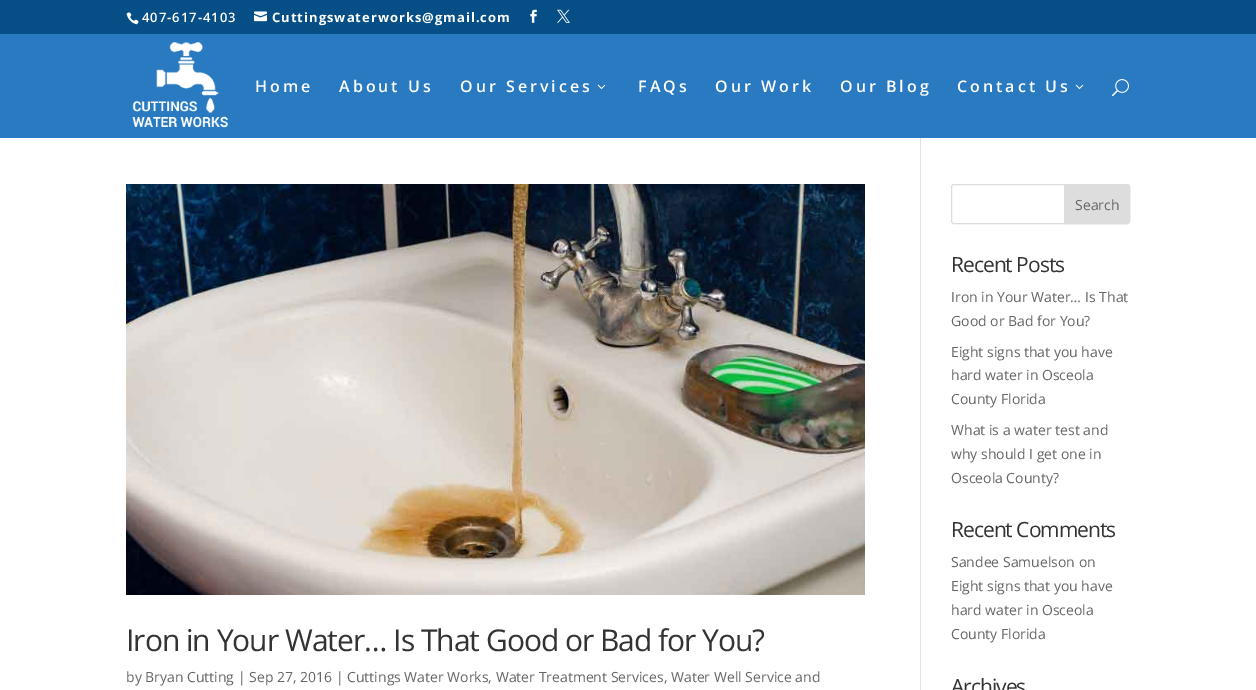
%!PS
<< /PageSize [1256 690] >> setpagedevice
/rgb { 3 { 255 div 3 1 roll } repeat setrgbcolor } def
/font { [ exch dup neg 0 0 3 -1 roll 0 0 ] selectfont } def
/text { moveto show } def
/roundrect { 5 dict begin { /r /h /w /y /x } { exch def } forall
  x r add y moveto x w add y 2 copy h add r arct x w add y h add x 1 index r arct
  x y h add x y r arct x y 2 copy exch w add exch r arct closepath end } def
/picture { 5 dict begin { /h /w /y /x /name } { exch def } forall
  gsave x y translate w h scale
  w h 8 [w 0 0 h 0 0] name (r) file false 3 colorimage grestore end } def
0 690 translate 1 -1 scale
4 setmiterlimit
255 255 255 rgb
0 0 1256 690 rectfill
5 79 134 rgb
0 0 1256 34 rectfill
(img_01.rgb) 126 12 13 13 picture
(img_02.rgb) 254 11 13 11 picture
(img_03.rgb) 530 9 7 14 picture
(img_04.rgb) 557 9 13 14 picture
41 122 193 rgb
0 34 1256 104 rectfill
(img_05.rgb) 132 42 96 86 picture
(img_06.rgb) 597 84 9 5 picture
(img_06.rgb) 1075 84 9 5 picture
(img_07.rgb) 1112 79 17 18 picture
226 226 226 rgb
920 138 1 552 rectfill
(img_08.rgb) 126 184 739 411 picture
221 221 221 rgb
951.5 184.5 178 39 2.5 roundrect stroke
1064.5 184.5 moveto 62.5 0 rlineto 1.5 0 2.5 1 2.5 2.5 rcurveto 0 34 rlineto 0 1.5 -1 2.5 -2.5 2.5 rcurveto -62.5 0 rlineto closepath gsave fill grestore
stroke
/OpenSans-SemiBold 13 font
255 255 255 rgb
142 22 moveto 1 0 (407-617-4103) ashow
/OpenSans-Bold 13 font
272 22 moveto 1 0 (Cuttingswaterworks@gmail.com) ashow
/OpenSans-SemiBold 16 font
255 92 moveto 3 0 (Home) ashow
339 92 moveto 3 0 (About Us) ashow
460 92 moveto 3 0 (Our Services) ashow
638 92 moveto 3 0 (FAQs) ashow
715 92 moveto 3 0 (Our Work) ashow
840 92 moveto 3 0 (Our Blog) ashow
957 92 moveto 3 0 (Contact Us) ashow
/OpenSans-Regular 30 font
51 51 51 rgb
126 651 moveto -1 0 (Iron in Your Water… Is That Good or Bad for You?) ashow
/OpenSans-Regular 14 font
102 102 102 rgb
(by Bryan Cutting | Sep 27, 2016 | Cuttings Water Works, Water Treatment Services, Water Well Service and) 126 682 text
(Search) 1075 210 text
/OpenSans-Regular 21 font
51 51 51 rgb
951 272 moveto -1 0 (Recent Posts) ashow
/OpenSans-Regular 14 font
102 102 102 rgb
(Iron in Your Water… Is That) 951 302 text
(Good or Bad for You?) 951 326 text
(Eight signs that you have) 951 357 text
(hard water in Osceola) 951 380 text
(County Florida) 951 404 text
(What is a water test and) 951 435 text
(why should I get one in) 951 459 text
(Osceola County?) 951 483 text
/OpenSans-Regular 21 font
51 51 51 rgb
951 537 moveto -1 0 (Recent Comments) ashow
/OpenSans-Regular 14 font
102 102 102 rgb
(Sandee Samuelson on) 951 567 text
(Eight signs that you have) 951 591 text
(hard water in Osceola) 951 615 text
(County Florida) 951 639 text
/OpenSans-Regular 21 font
51 51 51 rgb
951 694 moveto -1 0 (Archives) ashow
showpage
